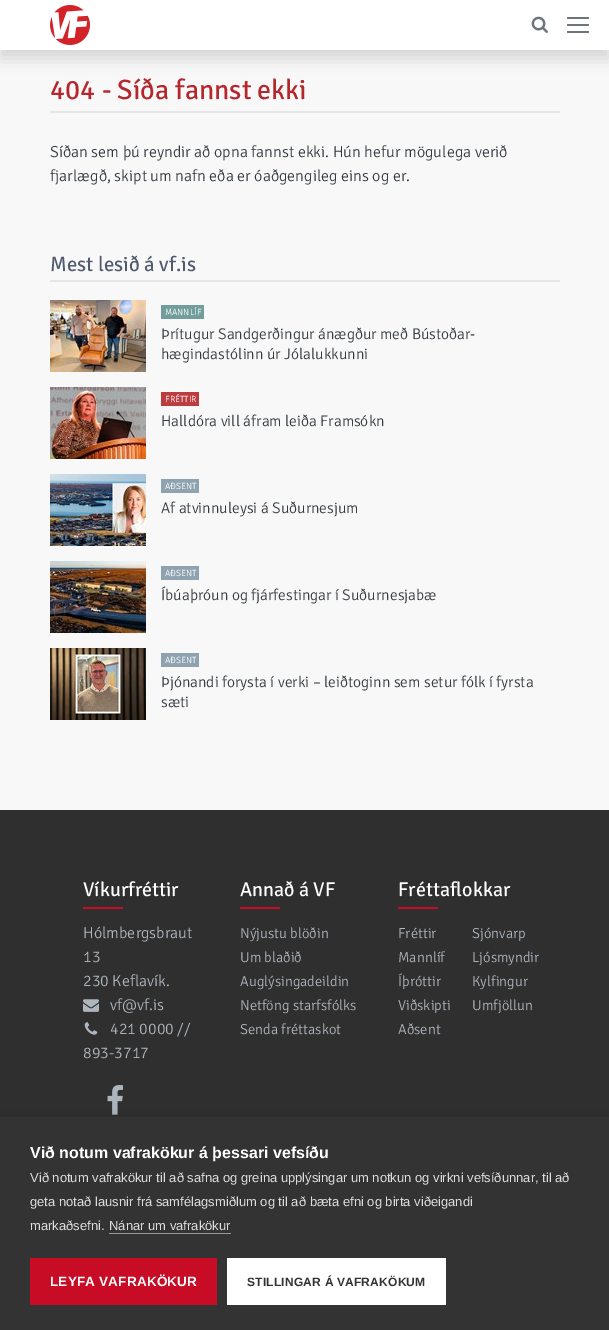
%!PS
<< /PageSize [609 1330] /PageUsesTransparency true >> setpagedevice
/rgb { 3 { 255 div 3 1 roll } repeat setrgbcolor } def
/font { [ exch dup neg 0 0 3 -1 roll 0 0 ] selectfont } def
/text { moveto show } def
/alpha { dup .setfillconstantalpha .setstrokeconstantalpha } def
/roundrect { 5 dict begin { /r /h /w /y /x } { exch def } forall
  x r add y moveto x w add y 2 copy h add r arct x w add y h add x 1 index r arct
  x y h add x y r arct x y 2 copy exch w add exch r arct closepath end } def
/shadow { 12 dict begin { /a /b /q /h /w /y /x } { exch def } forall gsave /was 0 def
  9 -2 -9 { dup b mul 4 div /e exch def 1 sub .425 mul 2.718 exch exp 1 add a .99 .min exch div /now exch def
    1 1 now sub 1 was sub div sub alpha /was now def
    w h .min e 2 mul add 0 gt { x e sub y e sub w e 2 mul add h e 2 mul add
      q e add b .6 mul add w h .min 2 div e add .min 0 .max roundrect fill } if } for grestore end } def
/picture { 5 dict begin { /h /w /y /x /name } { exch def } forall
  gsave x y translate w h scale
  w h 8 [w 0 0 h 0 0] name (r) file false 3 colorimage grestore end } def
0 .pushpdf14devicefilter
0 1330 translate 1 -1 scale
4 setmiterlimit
248 248 249 rgb
0 0 609 1330 rectfill
0 0 0 rgb
0 8 609 50 0 8 0.15 shadow
255 255 255 rgb
0 0 609 50 rectfill
(img_01.rgb) 50 5 40 40 picture
(img_02.rgb) 531 16 17 17 picture
108 117 125 rgb
567 17 22 2 1 roundrect fill
567 24 22 2 1 roundrect fill
567 31 22 2 1 roundrect fill
230 230 232 rgb
50 111 510 2 rectfill
50 280 510 2 rectfill
(img_03.rgb) 50 300 96 72 picture
113 157 155 rgb
161 305 43 14 rectfill
(img_04.rgb) 50 387 96 72 picture
187 60 65 rgb
161 392 38 14 rectfill
(img_05.rgb) 50 474 96 72 picture
143 162 175 rgb
161 479 38 14 rectfill
(img_06.rgb) 50 561 96 72 picture
161 566 38 14 rectfill
(img_07.rgb) 50 648 96 72 picture
161 653 38 14 rectfill
47 47 47 rgb
0 810 609 307 rectfill
200 12 37 rgb
83 907 40 2 rectfill
(img_08.rgb) 83 999 16 13 picture
(img_09.rgb) 84 1022 14 13 picture
(img_10.rgb) 107 1085 16 30 picture
240 907 40 2 rectfill
398 907 40 2 rectfill
0 0 0 rgb
0 1117 609 213 0 10 0.1 shadow
51 51 51 rgb
0 1117 609 213 rectfill
153 153 153 rgb
109 1233 122 1 rectfill
200 12 37 rgb
30 1258 187 47 rectfill
255 255 255 rgb
227 1258 219 47 rectfill
/SignikaNegative-Regular 28 font
180 39 45 rgb
(404 - Síða fannst ekki) 50 99 text
/SignikaNegative-Light 16 font
52 58 64 rgb
(Síðan sem þú reyndir að opna fannst ekki. Hún hefur mögulega verið) 50 157 text
(fjarlægð, skipt um nafn eða er óaðgengileg eins og er.) 50 181 text
/SignikaNegative-Regular 20.75 font
82 91 110 rgb
(Mest lesið á vf.is) 50 271 text
/SignikaNegative-Light 9 font
255 255 255 rgb
(MANNLÍF) 165 315 text
/SignikaNegative-Light 15.5 font
52 58 64 rgb
(Þrítugur Sandgerðingur ánægður með Bústoðar-) 161 339 text
(hægindastólinn úr Jólalukkunni) 161 359 text
/SignikaNegative-Light 9 font
255 255 255 rgb
(FRÉTTIR) 165 402 text
/SignikaNegative-Light 15.5 font
52 58 64 rgb
(Halldóra vill áfram leiða Framsókn) 161 426 text
/SignikaNegative-Light 9 font
255 255 255 rgb
(AÐSENT) 165 489 text
/SignikaNegative-Light 15.5 font
52 58 64 rgb
(Af atvinnuleysi á Suðurnesjum) 161 513 text
/SignikaNegative-Light 9 font
255 255 255 rgb
(AÐSENT) 165 576 text
/SignikaNegative-Light 15.5 font
52 58 64 rgb
(Íbúaþróun og fjárfestingar í Suðurnesjabæ) 161 600 text
/SignikaNegative-Light 9 font
255 255 255 rgb
(AÐSENT) 165 663 text
/SignikaNegative-Light 15.5 font
52 58 64 rgb
(Þjónandi forysta í verki – leiðtoginn sem setur fólk í fyrsta) 161 687 text
(sæti) 161 707 text
/SignikaNegative-Regular 20 font
255 255 255 rgb
(Víkurfréttir) 83 896 text
/SignikaNegative-Light 16 font
173 181 189 rgb
(Hólmbergsbraut) 83 938 text
(13) 83 962 text
(230 Keflavík.) 83 986 text
(vf@vf.is) 110 1010 text
(421 0000 //) 110 1034 text
(893-3717) 83 1058 text
/SignikaNegative-Regular 20 font
255 255 255 rgb
(Annað á VF) 240 896 text
/SignikaNegative-Light 14.5 font
173 181 189 rgb
(Nýjustu blöðin) 240 938 text
(Um blaðið) 240 962 text
(Auglýsingadeildin) 240 986 text
(Netföng starfsfólks) 240 1010 text
(Senda fréttaskot) 240 1034 text
/SignikaNegative-Regular 20 font
255 255 255 rgb
(Fréttaflokkar) 398 896 text
/SignikaNegative-Light 14.5 font
173 181 189 rgb
(Fréttir) 398 938 text
(Sjónvarp) 472 938 text
(Mannlíf) 398 962 text
(Ljósmyndir) 472 962 text
(Íþróttir) 398 986 text
(Kylfingur) 472 986 text
(Viðskipti) 398 1010 text
(Umfjöllun) 472 1010 text
(Aðsent) 398 1034 text
/LiberationSans-Bold 16 font
255 255 255 rgb
(Við notum vafrakökur á þessari vefsíðu) 30 1158 text
/LiberationSans-Regular 13 font
221 221 221 rgb
(Við notum vafrakökur til að safna og greina upplýsingar um notkun og virkni vefsíðunnar, til að) 30 1182 text
(geta notað lausnir frá samfélagsmiðlum og til að bæta efni og birta viðeigandi) 30 1206 text
(markaðsefni.) 30 1230 text
(Nánar um vafrakökur) 109 1230 text
/LiberationSans-Bold 13.5 font
255 255 255 rgb
50 1286 moveto 0.2 0 (LEYFA VAFRAKÖKUR) ashow
/LiberationSans-Bold 12 font
51 51 51 rgb
247 1286 moveto 0.2 0 (STILLINGAR Á VAFRAKÖKUM) ashow
.poppdf14devicefilter showpage
